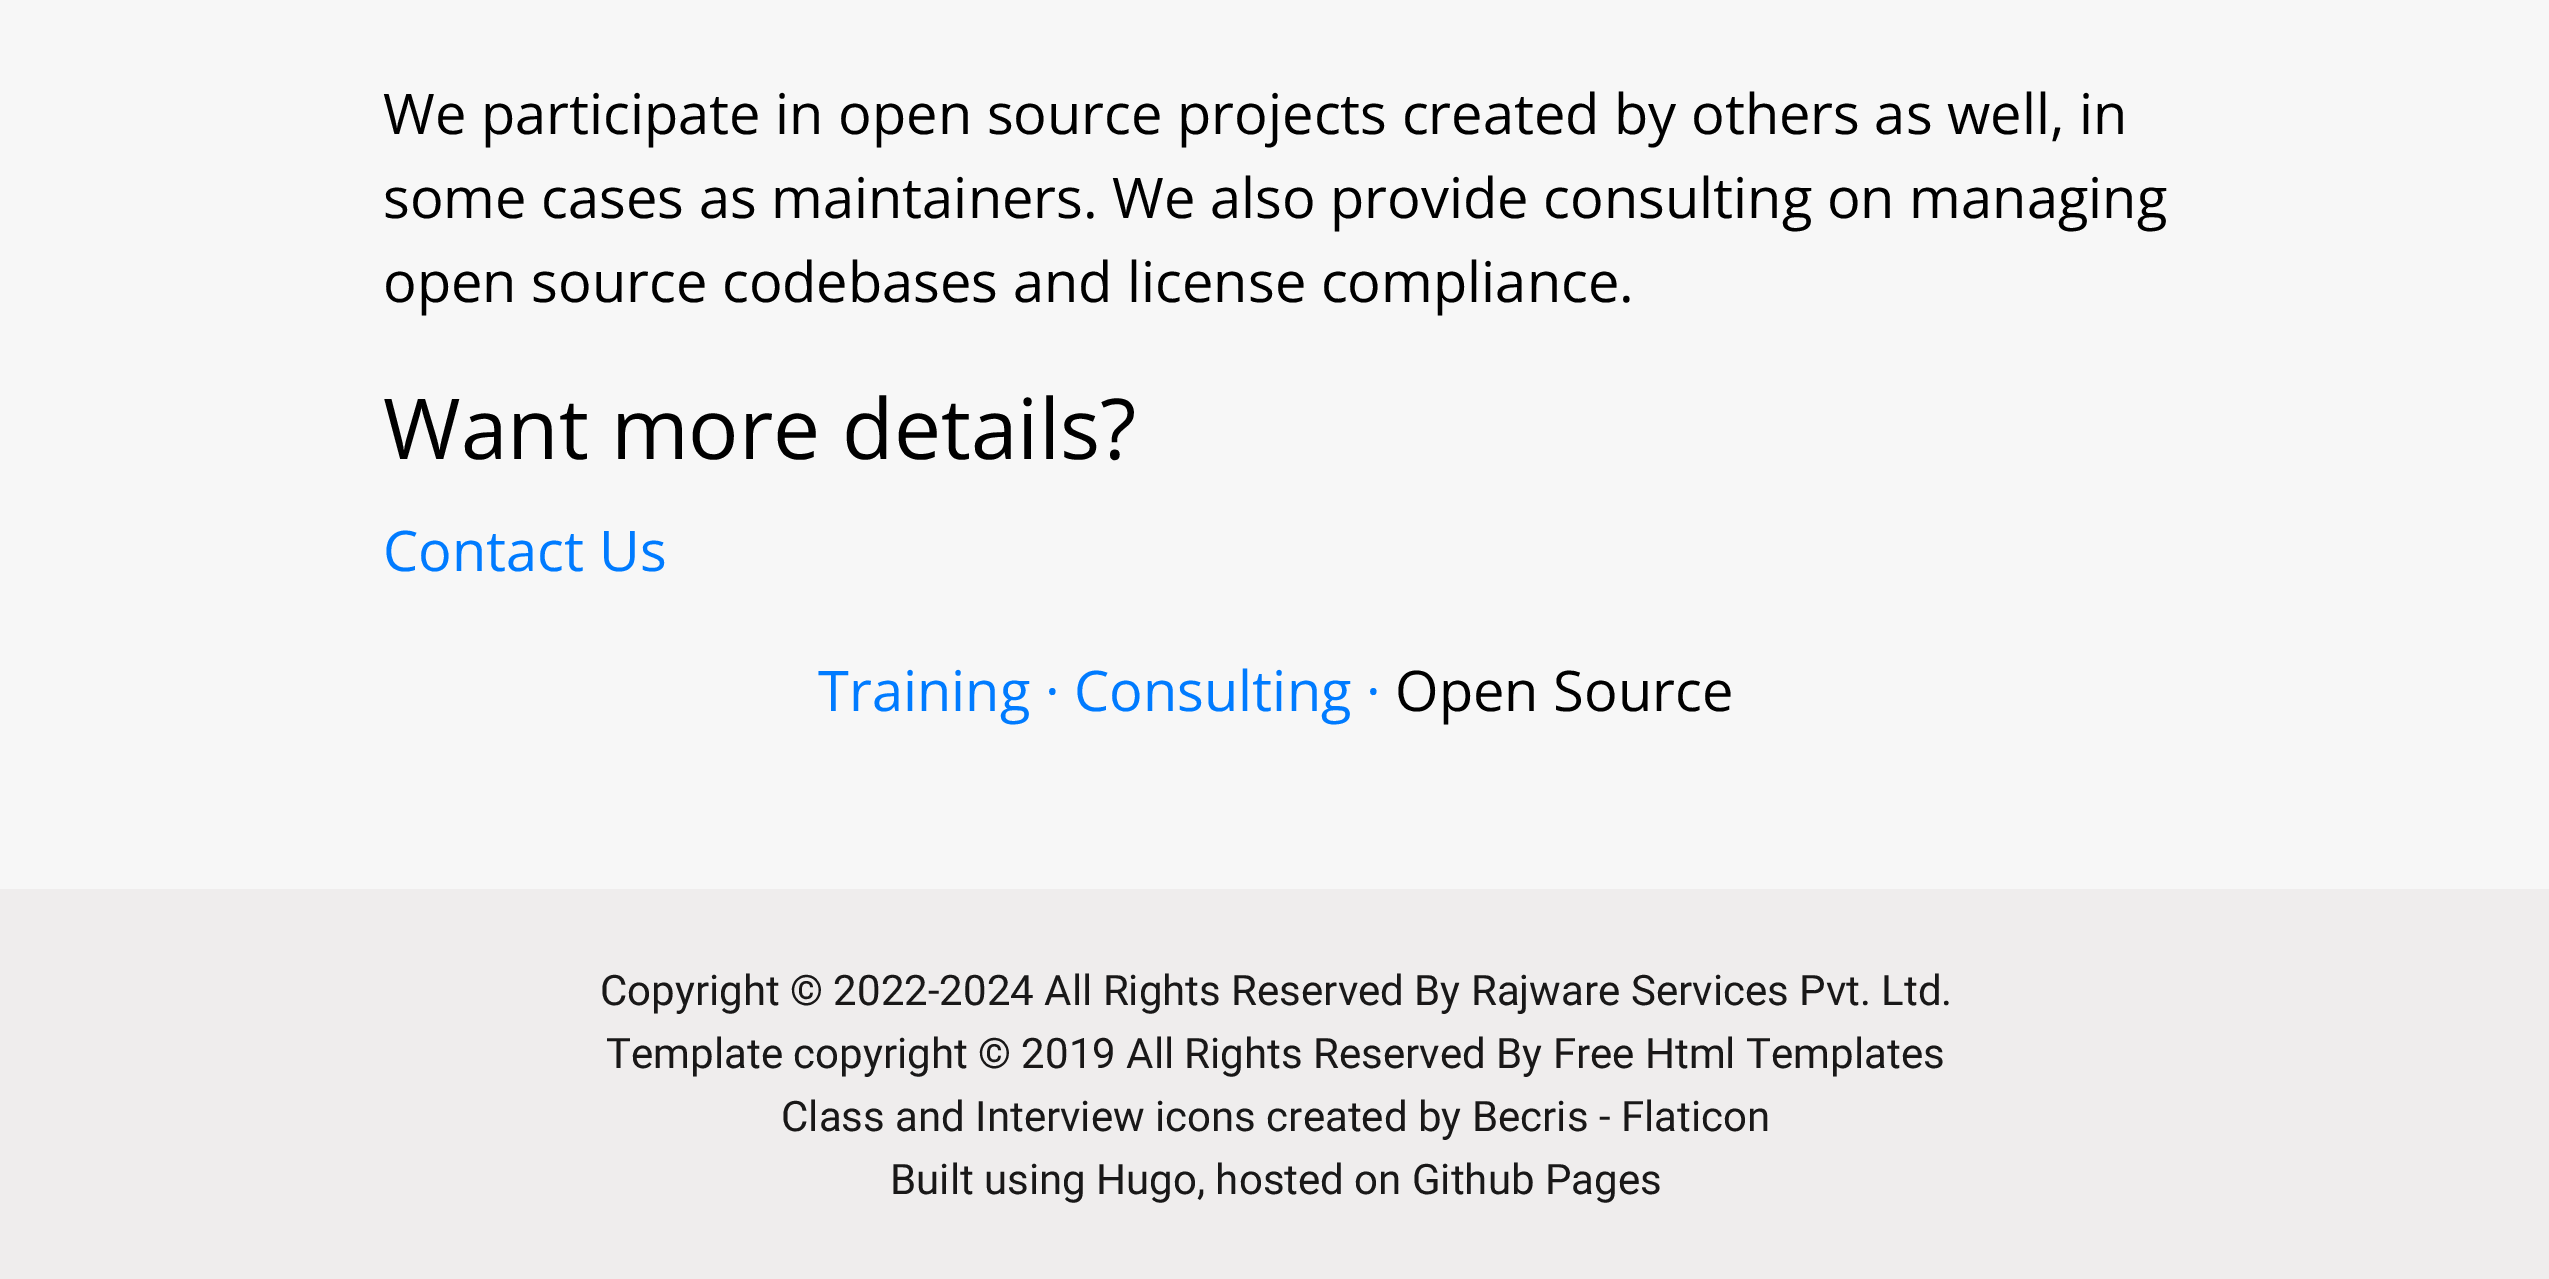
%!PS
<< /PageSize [2549 1279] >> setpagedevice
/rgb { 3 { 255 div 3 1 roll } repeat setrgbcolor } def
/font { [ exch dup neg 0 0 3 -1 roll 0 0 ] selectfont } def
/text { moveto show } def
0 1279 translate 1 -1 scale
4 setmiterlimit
247 247 247 rgb
0 0 2549 1279 rectfill
239 237 237 rgb
0 889 2549 390 rectfill
/OpenSans-Regular 56 font
0 0 0 rgb
(We participate in open source projects created by others as well, in) 383 134 text
(some cases as maintainers. We also provide consulting on managing) 383 218 text
(open source codebases and license compliance.) 383 302 text
/OpenSans-Regular 84 font
(Want more details?) 383 459 text
/OpenSans-Regular 56 font
0 123 255 rgb
(Contact Us) 383 571 text
(Training · Consulting ·) 818 711 text
0 0 0 rgb
(Open Source) 1395 711 text
/Roboto-Regular 42 font
25 24 24 rgb
(Copyright © 2022-2024 All Rights Reserved By Rajware Services Pvt. Ltd.) 600 1005 text
(Template copyright © 2019 All Rights Reserved By Free Html Templates) 606 1068 text
(Class and Interview icons created by Becris - Flaticon) 781 1131 text
(Built using Hugo, hosted on Github Pages) 890 1194 text
showpage
